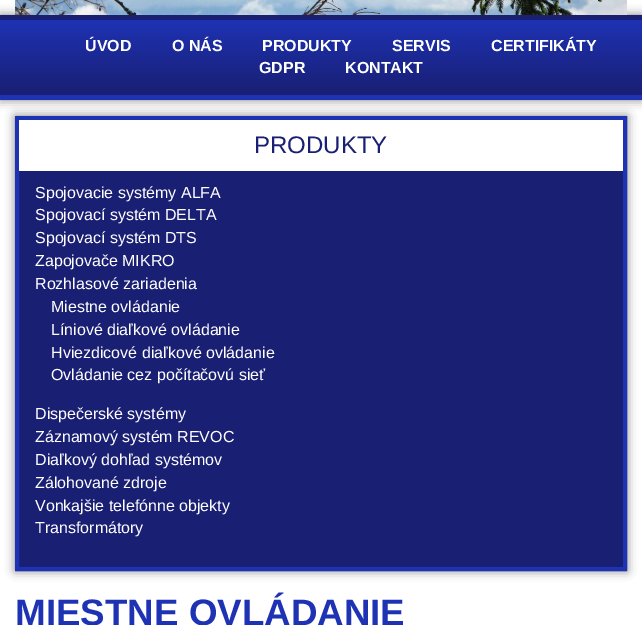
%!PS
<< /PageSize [642 625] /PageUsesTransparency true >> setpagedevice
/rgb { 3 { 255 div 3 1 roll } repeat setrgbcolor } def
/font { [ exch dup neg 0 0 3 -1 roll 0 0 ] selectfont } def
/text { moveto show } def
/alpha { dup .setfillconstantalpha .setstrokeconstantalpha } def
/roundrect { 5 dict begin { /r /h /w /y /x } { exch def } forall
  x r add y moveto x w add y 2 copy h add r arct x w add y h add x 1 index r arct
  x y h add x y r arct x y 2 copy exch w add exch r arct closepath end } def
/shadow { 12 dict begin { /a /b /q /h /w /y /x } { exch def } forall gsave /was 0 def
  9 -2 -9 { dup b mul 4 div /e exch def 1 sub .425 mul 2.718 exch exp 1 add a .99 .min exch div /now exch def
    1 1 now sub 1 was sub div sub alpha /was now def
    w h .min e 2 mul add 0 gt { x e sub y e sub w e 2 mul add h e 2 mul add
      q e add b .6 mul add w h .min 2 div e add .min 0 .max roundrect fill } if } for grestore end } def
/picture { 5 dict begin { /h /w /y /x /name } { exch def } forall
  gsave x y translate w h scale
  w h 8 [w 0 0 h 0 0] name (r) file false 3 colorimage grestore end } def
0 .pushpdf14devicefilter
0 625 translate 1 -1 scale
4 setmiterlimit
255 255 255 rgb
0 0 642 625 rectfill
0 0 0 rgb
0 15 642 85 0 5 0.5 shadow
(img_01.rgb) 15 0 612 15 picture
gsave 0 20 moveto 642 0 rlineto 0 75 rlineto -642 0 rlineto closepath clip newpath
<< /ShadingType 2 /ColorSpace /DeviceRGB /Coords [321 20 321 95] /Extend [true true] /Function << /FunctionType 2 /Domain [0 1] /C0 [0.118 0.196 0.706] /C1 [0.098 0.122 0.447] /N 1 >> >> shfill grestore
25 31 114 rgb
0 15 642 5 rectfill
30 50 180 rgb
0 95 642 5 rectfill
0 0 0 rgb
15 116 612 455 0 5 0.5 shadow
25 31 114 rgb
19 171 604 396 rectfill
30 50 180 rgb
4 setlinewidth
17 118 608 451 rectstroke
255 255 255 rgb
19 120 604 51 rectfill
/LiberationSans-Bold 16 font
(ÚVOD) 85 51 text
(O NÁS) 172 51 text
(PRODUKTY) 262 51 text
(SERVIS) 392 51 text
(CERTIFIKÁTY) 491 51 text
(GDPR) 259 73 text
(KONTAKT) 345 73 text
/LiberationSans-Regular 24 font
25 31 114 rgb
(PRODUKTY) 254 153 text
/LiberationSans-Regular 16 font
255 255 255 rgb
(Spojovacie systémy ALFA) 35 198 text
(Spojovací systém DELTA) 35 220 text
(Spojovací systém DTS) 35 243 text
(Zapojovače MIKRO) 35 266 text
(Rozhlasové zariadenia) 35 289 text
(Miestne ovládanie) 51 312 text
(Líniové diaľkové ovládanie) 51 335 text
(Hviezdicové diaľkové ovládanie) 51 358 text
(Ovládanie cez počítačovú sieť) 51 380 text
(Dispečerské systémy) 35 419 text
(Záznamový systém REVOC) 35 442 text
(Diaľkový dohľad systémov) 35 465 text
(Zálohované zdroje) 35 488 text
(Vonkajšie telefónne objekty) 35 511 text
(Transformátory) 35 533 text
/LiberationSans-Bold 36.75 font
30 50 180 rgb
(MIESTNE OVLÁDANIE) 15 625 text
.poppdf14devicefilter showpage
